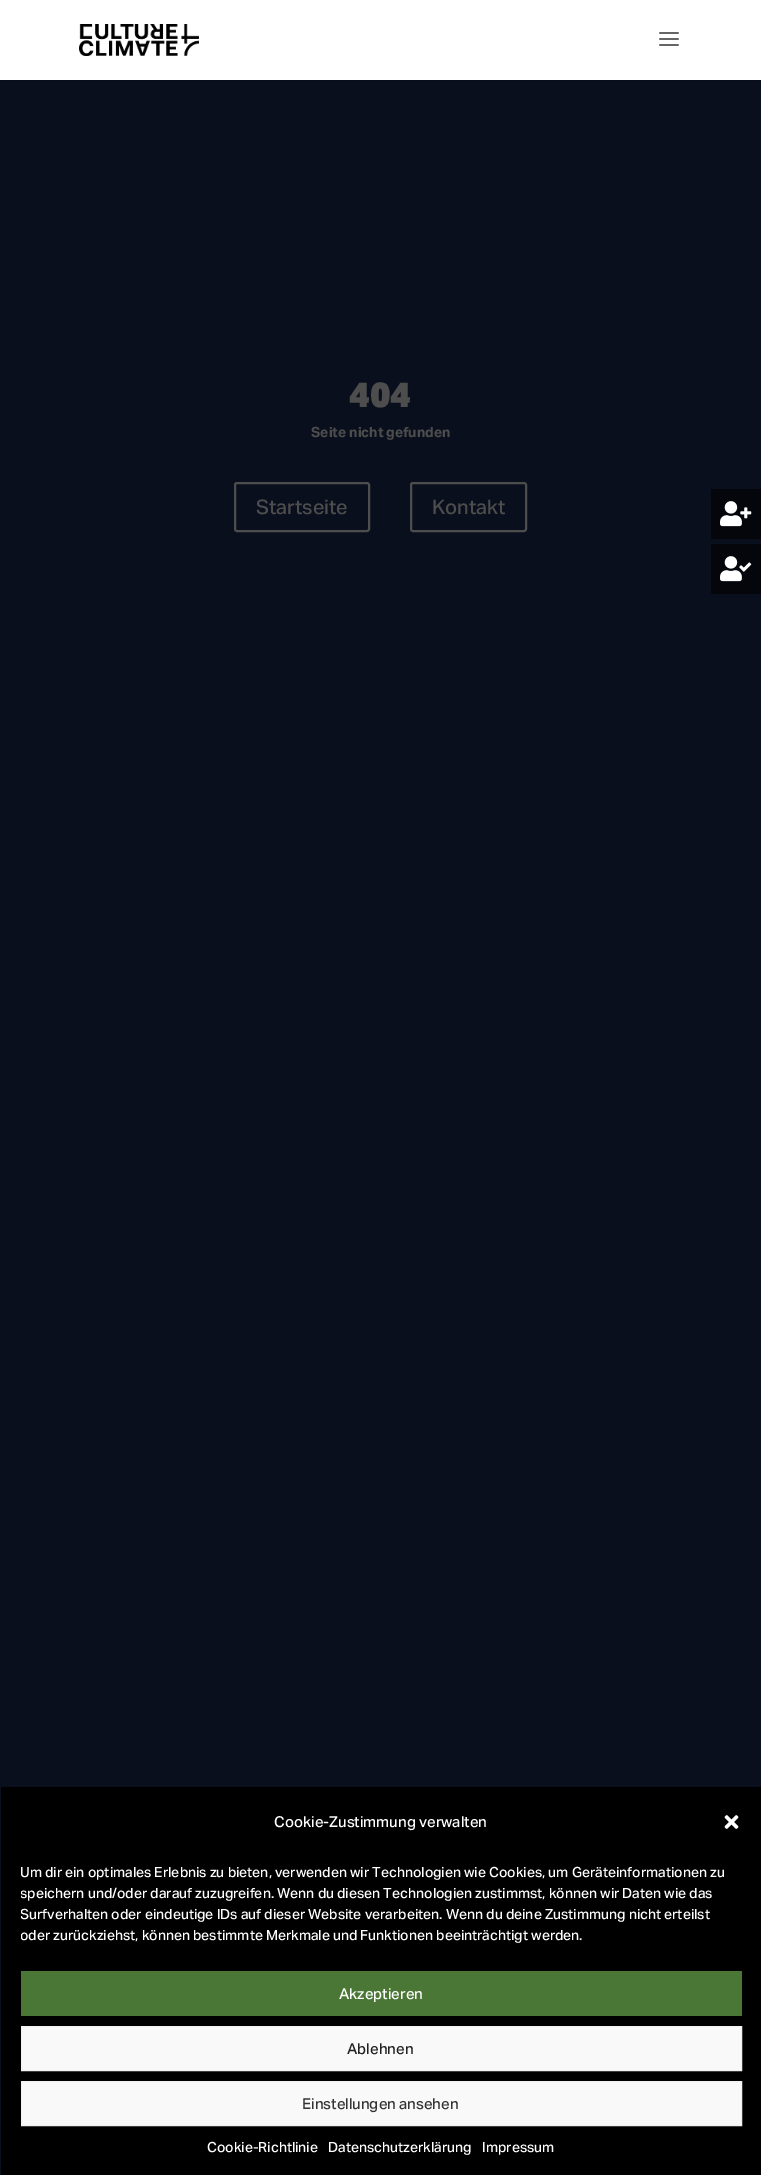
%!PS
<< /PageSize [761 2175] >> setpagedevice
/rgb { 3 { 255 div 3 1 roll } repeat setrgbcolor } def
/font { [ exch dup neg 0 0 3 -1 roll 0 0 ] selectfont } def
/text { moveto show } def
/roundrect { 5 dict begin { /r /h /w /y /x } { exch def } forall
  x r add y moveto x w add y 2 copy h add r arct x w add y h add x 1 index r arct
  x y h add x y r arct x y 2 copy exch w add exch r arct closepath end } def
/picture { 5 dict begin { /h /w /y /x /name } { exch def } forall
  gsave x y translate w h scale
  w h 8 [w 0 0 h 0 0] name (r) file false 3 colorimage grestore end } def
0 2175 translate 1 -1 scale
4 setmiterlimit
10 15 29 rgb
0 0 761 2175 rectfill
9 13 26 rgb
0 80 761 1 rectfill
255 255 255 rgb
0 0 761 80 rectfill
(img_01.rgb) 79 24 120 32 picture
(img_02.rgb) 659 32 20 14 picture
77 77 77 rgb
2 setlinewidth
235 483 134 48 2 roundrect stroke
411 483 115 48 2 roundrect stroke
4 6 12 rgb
711 489 50 50 rectfill
(img_03.rgb) 720 501 32 26 picture
711 544 50 50 rectfill
(img_04.rgb) 720 556 32 26 picture
0 0 0 rgb
1 1787 760 388 rectfill
(img_05.rgb) 724 1815 15 14 picture
74 118 54 rgb
21 1971 721 45 rectfill
249 249 249 rgb
21.5 2026.5 moveto 720 0 rlineto 0 44 rlineto -720 0 rlineto closepath gsave fill grestore
242 242 242 rgb
1 setlinewidth
stroke
249 249 249 rgb
21.5 2081.5 moveto 720 0 rlineto 0 44 rlineto -720 0 rlineto closepath gsave fill grestore
242 242 242 rgb
stroke
/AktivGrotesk-Black 35 font
77 77 77 rgb
(404) 349 407 text
/AktivGrotesk-Bold 14 font
(Seite nicht gefunden) 311 437 text
/AktivGrotesk-Medium 20 font
(Startseite) 256 514 text
(Kontakt) 432 514 text
/AktivGrotesk-Medium 15 font
255 255 255 rgb
(Cookie-Zustimmung verwalten) 274 1827 text
/AktivGrotesk-Medium 14 font
(Um dir ein optimales Erlebnis zu bieten, verwenden wir Technologien wie Cookies, um Geräteinformationen zu) 20 1877 text
gsave
21 1862 721 89 rectclip
(speichern und/oder darauf zuzugreifen. Wenn du diesen Technologien zustimmst, können wir Daten wie das) 20 1898 text
(Surfverhalten oder eindeutige IDs auf dieser Website verarbeiten. Wenn du deine Zustimmung nicht erteilst) 20 1919 text
(oder zurückziehst, können bestimmte Merkmale und Funktionen beeinträchtigt werden.) 20 1940 text
grestore
/AktivGrotesk-Medium 15 font
(Akzeptieren) 339 1999 text
34 34 34 rgb
(Ablehnen) 347 2054 text
51 51 51 rgb
(Einstellungen ansehen) 302 2109 text
/AktivGrotesk-Medium 14 font
255 255 255 rgb
(Cookie-Richtlinie) 207 2152 text
(Datenschutzerklärung) 328 2152 text
(Impressum) 482 2152 text
showpage
